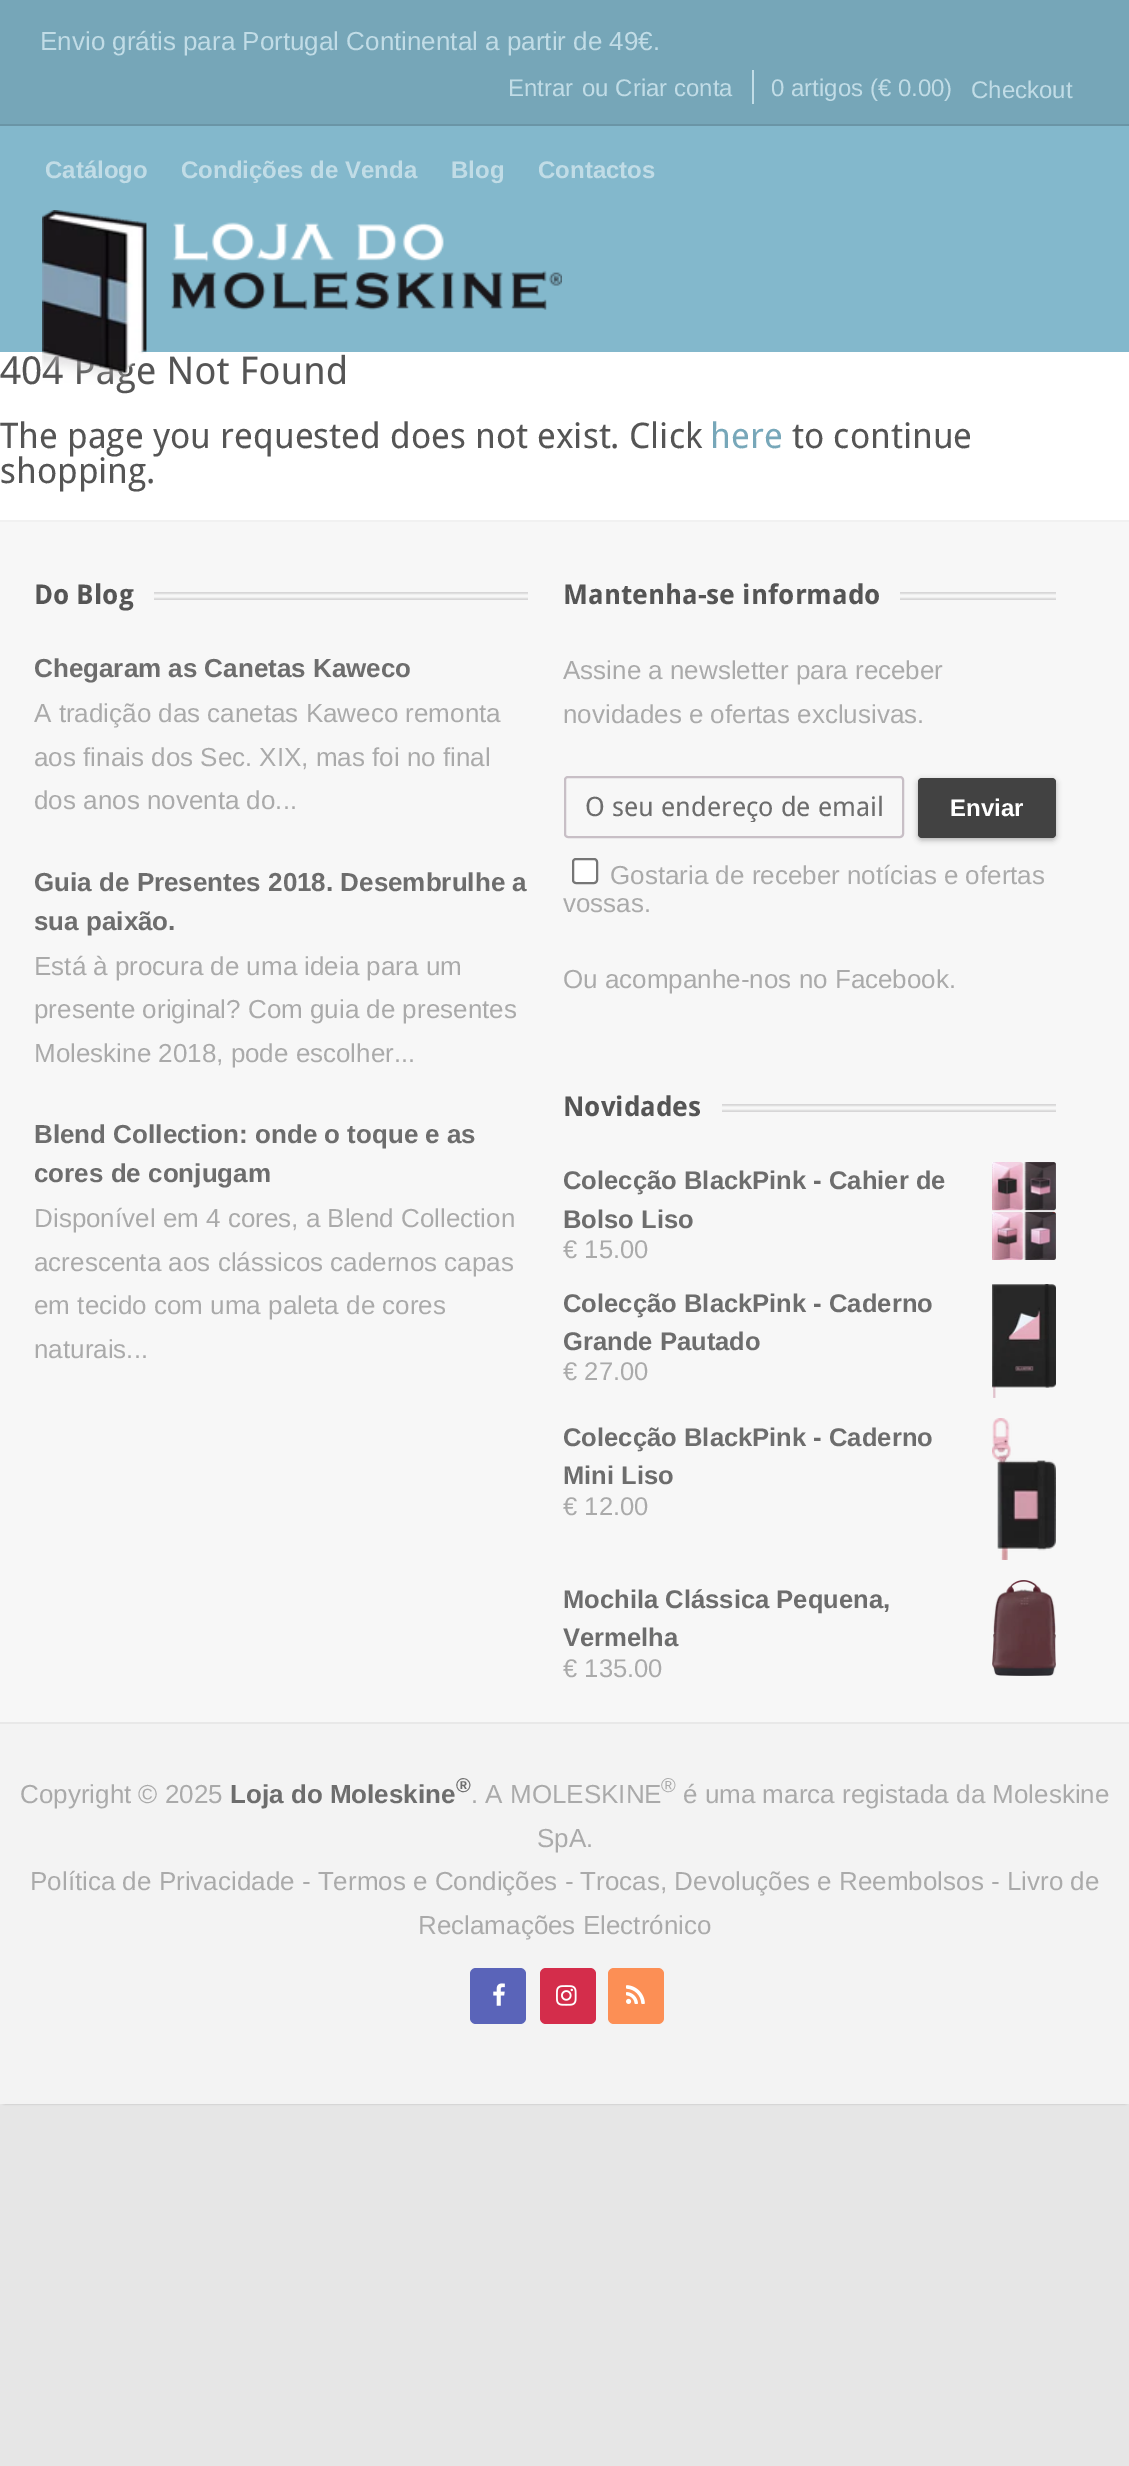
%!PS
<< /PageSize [1129 2466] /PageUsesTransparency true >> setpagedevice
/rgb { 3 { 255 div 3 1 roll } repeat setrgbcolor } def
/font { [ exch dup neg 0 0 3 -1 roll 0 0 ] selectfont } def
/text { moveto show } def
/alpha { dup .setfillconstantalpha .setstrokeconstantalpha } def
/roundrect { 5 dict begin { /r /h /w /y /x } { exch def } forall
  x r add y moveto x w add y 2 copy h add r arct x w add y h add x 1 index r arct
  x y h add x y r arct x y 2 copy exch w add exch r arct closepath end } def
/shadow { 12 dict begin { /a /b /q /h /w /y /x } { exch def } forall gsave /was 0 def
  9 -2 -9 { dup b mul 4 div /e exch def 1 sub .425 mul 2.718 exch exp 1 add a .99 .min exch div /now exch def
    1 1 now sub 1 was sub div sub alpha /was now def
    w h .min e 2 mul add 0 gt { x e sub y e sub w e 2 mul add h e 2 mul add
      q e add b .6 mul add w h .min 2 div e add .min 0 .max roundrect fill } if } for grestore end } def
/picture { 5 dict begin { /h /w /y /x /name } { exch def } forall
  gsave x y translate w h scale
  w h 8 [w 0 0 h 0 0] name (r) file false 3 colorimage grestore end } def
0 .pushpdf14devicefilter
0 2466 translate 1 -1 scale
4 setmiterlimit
230 230 230 rgb
0 0 1129 2466 rectfill
0 0 0 rgb
0 0 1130 2104 6 1 0.2 shadow
255 255 255 rgb
0 352 1129 168 rectfill
131 184 204 rgb
0 126 1129 226 rectfill
118 166 184 rgb
0 0 1129 124 rectfill
106 149 166 rgb
0 124 1129 2 rectfill
193 220 230 rgb
752 70 2 34 rectfill
247 247 247 rgb
0 522 1129 1200 rectfill
241 241 241 rgb
0 520 1129 2 rectfill
(img_02.rgb) 154 592 374 8 picture
(img_03.rgb) 900 592 156 8 picture
200 191 198 rgb
2 setlinewidth
565 777 338 60 3 roundrect stroke
0 0 0 rgb
918 780 138 60 4 3 0.3 shadow
66 66 66 rgb
918 778 138 60 4 roundrect fill
255 255 255 rgb
573 859 24 24 3 roundrect gsave fill grestore
118 118 118 rgb
stroke
(img_04.rgb) 722 1104 334 8 picture
(img_05.rgb) 992 1162 64 98 picture
(img_06.rgb) 992 1284 64 114 picture
(img_07.rgb) 992 1418 64 142 picture
(img_08.rgb) 992 1580 64 96 picture
243 243 243 rgb
0 1724 1129 380 rectfill
232 232 232 rgb
0 1722 1129 2 rectfill
90 100 185 rgb
470 1968 56 56 6 roundrect fill
(img_09.rgb) 493 1983 12 23 picture
212 45 75 rgb
540 1968 56 56 6 roundrect fill
(img_10.rgb) 556 1985 21 21 picture
252 143 85 rgb
608 1968 56 56 6 roundrect fill
(img_11.rgb) 626 1985 19 19 picture
/LiberationSans-Regular 26 font
193 220 230 rgb
(Envio grátis para Portugal Continental a partir de 49€.) 40 50 text
/LiberationSans-Regular 24 font
(Entrar) 508 96 text
(ou Criar conta) 582 96 text
(0 artigos \(€ 0.00\)) 771 96 text
(Checkout) 971 98 text
/LiberationSans-Bold 24 font
(Catálogo) 45 178 text
(Condições de Venda) 181 178 text
(Blog) 451 178 text
(Contactos) 538 178 text
/DroidSans-Regular 38.5 font
85 85 85 rgb
(404 Page Not Found) 0 384 text
(img_01.rgb) 42 210 520 175 picture
/DroidSans-Regular 35.25 font
(The page you requested does not exist. Click) 0 448 text
119 167 185 rgb
(here) 710 448 text
85 85 85 rgb
(to continue) 792 448 text
(shopping.) 0 483 text
/DroidSans-Bold 27.25 font
(Do Blog) 34 604 text
/LiberationSans-Bold 26 font
109 109 109 rgb
(Chegaram as Canetas Kaweco) 34 677 text
/LiberationSans-Regular 26 font
170 170 170 rgb
(A tradição das canetas Kaweco remonta) 34 722 text
(aos finais dos Sec. XIX, mas foi no final) 34 766 text
(dos anos noventa do...) 34 809 text
/LiberationSans-Bold 26 font
109 109 109 rgb
(Guia de Presentes 2018. Desembrulhe a) 34 891 text
(sua paixão.) 34 930 text
/LiberationSans-Regular 26 font
170 170 170 rgb
(Está à procura de uma ideia para um) 34 975 text
(presente original? Com guia de presentes) 34 1018 text
(Moleskine 2018, pode escolher...) 34 1062 text
/LiberationSans-Bold 26 font
109 109 109 rgb
(Blend Collection: onde o toque e as) 34 1143 text
(cores de conjugam) 34 1182 text
/LiberationSans-Regular 26 font
170 170 170 rgb
(Disponível em 4 cores, a Blend Collection) 34 1227 text
(acrescenta aos clássicos cadernos capas) 34 1271 text
(em tecido com uma paleta de cores) 34 1314 text
(naturais...) 34 1358 text
/DroidSans-Bold 27.25 font
85 85 85 rgb
(Mantenha-se informado) 563 604 text
/LiberationSans-Regular 26 font
170 170 170 rgb
(Assine a newsletter para receber) 563 679 text
(novidades e ofertas exclusivas.) 563 723 text
gsave
586 792 296 30 rectclip
/DroidSans-Regular 26.75 font
109 109 109 rgb
(O seu endereço de email) 585 816 text
grestore
/LiberationSans-Bold 24 font
255 255 255 rgb
(Enviar) 950 816 text
/LiberationSans-Regular 26 font
170 170 170 rgb
(Gostaria de receber notícias e ofertas) 610 884 text
(vossas.) 563 912 text
(Ou acompanhe-nos no Facebook.) 563 988 text
/DroidSans-Bold 27.25 font
85 85 85 rgb
(Novidades) 563 1116 text
/LiberationSans-Bold 25.6 font
109 109 109 rgb
(Colecção BlackPink - Cahier de) 563 1189 text
(Bolso Liso) 563 1228 text
/LiberationSans-Regular 25.6 font
170 170 170 rgb
(€ 15.00) 563 1258 text
/LiberationSans-Bold 25.6 font
109 109 109 rgb
(Colecção BlackPink - Caderno) 563 1312 text
(Grande Pautado) 563 1350 text
/LiberationSans-Regular 25.6 font
170 170 170 rgb
(€ 27.00) 563 1380 text
/LiberationSans-Bold 25.6 font
109 109 109 rgb
(Colecção BlackPink - Caderno) 563 1446 text
(Mini Liso) 563 1484 text
/LiberationSans-Regular 25.6 font
170 170 170 rgb
(€ 12.00) 563 1515 text
/LiberationSans-Bold 25.6 font
109 109 109 rgb
(Mochila Clássica Pequena,) 563 1608 text
(Vermelha) 563 1646 text
/LiberationSans-Regular 25.6 font
170 170 170 rgb
(€ 135.00) 563 1677 text
/LiberationSans-Regular 26 font
(Copyright © 2025) 20 1803 text
/LiberationSans-Bold 26 font
109 109 109 rgb
(Loja do Moleskine) 230 1803 text
/LiberationSans-Bold 20 font
(®) 456 1792 text
/LiberationSans-Regular 26 font
170 170 170 rgb
(. A MOLESKINE) 471 1803 text
/LiberationSans-Regular 20 font
(®) 661 1792 text
/LiberationSans-Regular 26 font
(é uma marca registada da Moleskine) 683 1803 text
(SpA.) 537 1847 text
(Política de Privacidade - Termos e Condições - Trocas, Devoluções e Reembolsos - Livro de) 30 1890 text
(Reclamações Electrónico) 418 1934 text
.poppdf14devicefilter showpage
